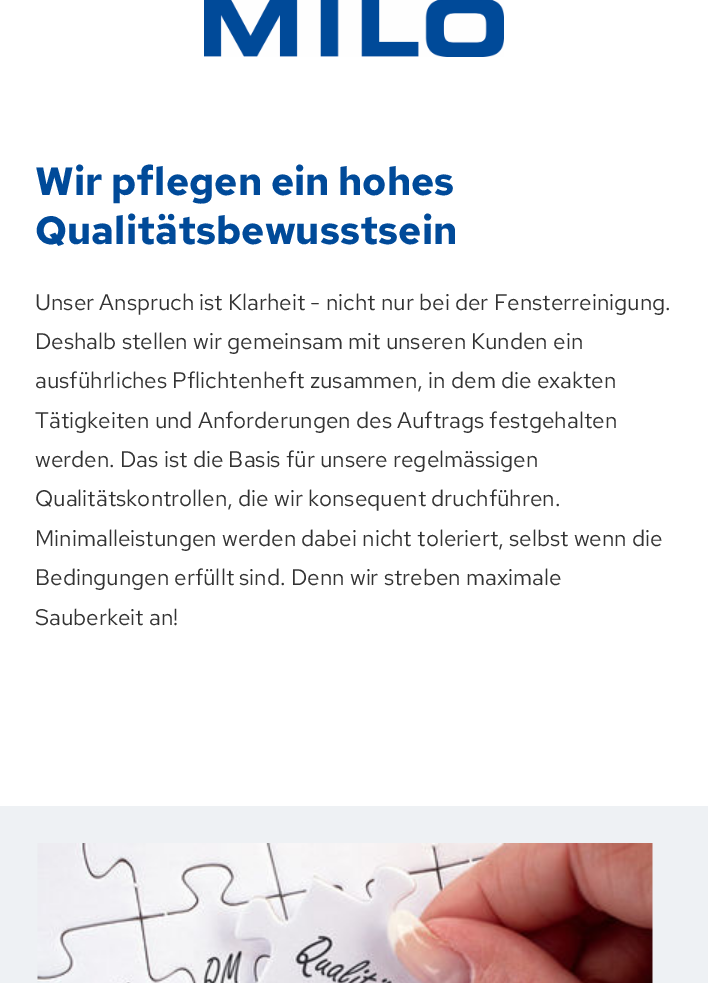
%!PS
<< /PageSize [708 983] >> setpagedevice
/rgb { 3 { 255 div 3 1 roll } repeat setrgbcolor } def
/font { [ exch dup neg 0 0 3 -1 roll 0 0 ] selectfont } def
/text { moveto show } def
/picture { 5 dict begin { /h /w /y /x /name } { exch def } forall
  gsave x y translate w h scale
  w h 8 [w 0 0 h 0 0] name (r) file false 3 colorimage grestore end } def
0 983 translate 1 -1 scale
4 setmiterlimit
255 255 255 rgb
0 0 708 983 rectfill
(img_01.rgb) 204 0 300 57 picture
238 241 244 rgb
0 806 708 177 rectfill
(img_02.rgb) 37 843 616 140 picture
/RedHatText-Bold 39.4 font
0 74 153 rgb
(Wir pflegen ein hohes) 35 195 text
(Qualitätsbewusstsein) 35 244 text
/RedHatText-Regular 22.5 font
51 51 51 rgb
(Unser Anspruch ist Klarheit - nicht nur bei der Fensterreinigung.) 35 310 text
(Deshalb stellen wir gemeinsam mit unseren Kunden ein) 35 349 text
(ausführliches Pflichtenheft zusammen, in dem die exakten) 35 388 text
(Tätigkeiten und Anforderungen des Auftrags festgehalten) 35 428 text
(werden. Das ist die Basis für unsere regelmässigen) 35 467 text
(Qualitätskontrollen, die wir konsequent druchführen.) 35 506 text
(Minimalleistungen werden dabei nicht toleriert, selbst wenn die) 35 546 text
(Bedingungen erfüllt sind. Denn wir streben maximale) 35 585 text
(Sauberkeit an!) 35 625 text
showpage
